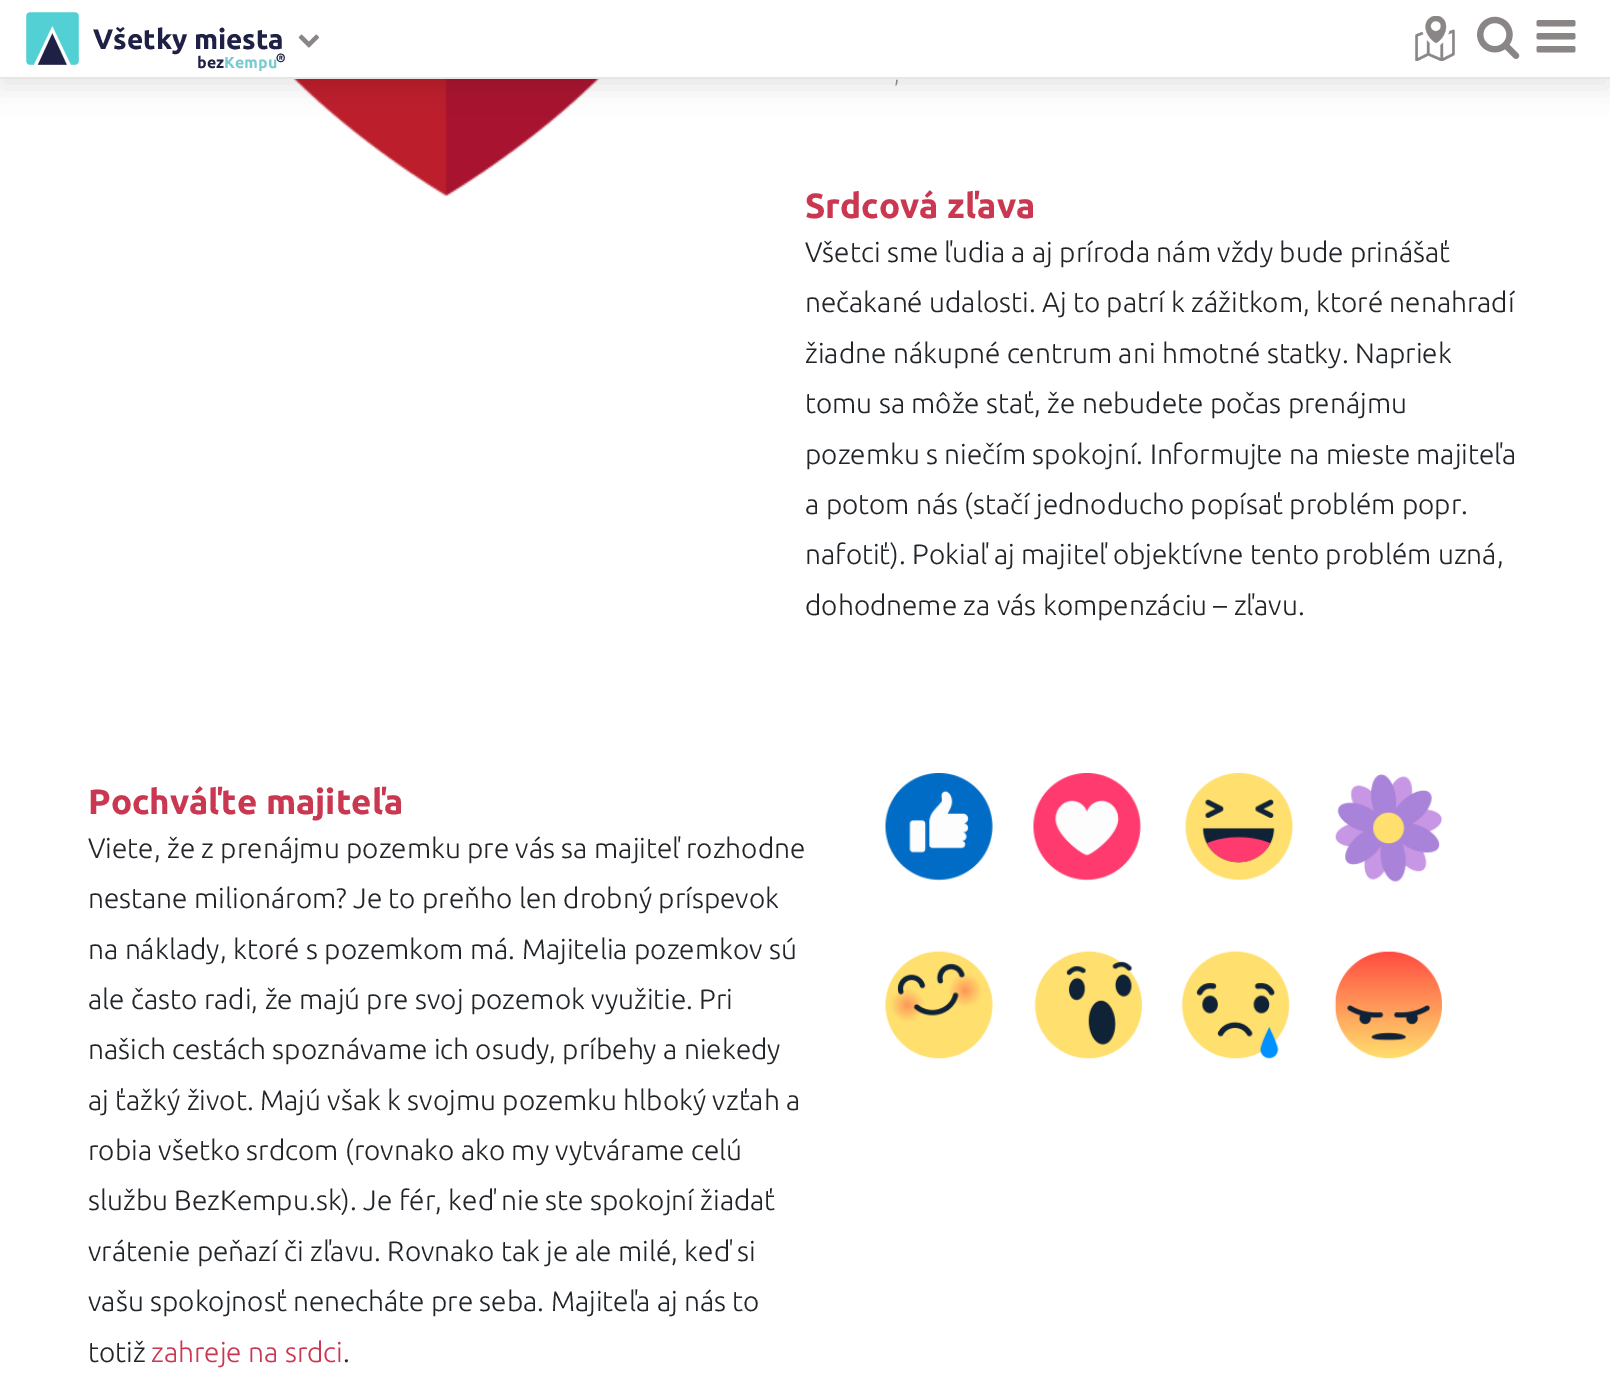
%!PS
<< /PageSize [1610 1376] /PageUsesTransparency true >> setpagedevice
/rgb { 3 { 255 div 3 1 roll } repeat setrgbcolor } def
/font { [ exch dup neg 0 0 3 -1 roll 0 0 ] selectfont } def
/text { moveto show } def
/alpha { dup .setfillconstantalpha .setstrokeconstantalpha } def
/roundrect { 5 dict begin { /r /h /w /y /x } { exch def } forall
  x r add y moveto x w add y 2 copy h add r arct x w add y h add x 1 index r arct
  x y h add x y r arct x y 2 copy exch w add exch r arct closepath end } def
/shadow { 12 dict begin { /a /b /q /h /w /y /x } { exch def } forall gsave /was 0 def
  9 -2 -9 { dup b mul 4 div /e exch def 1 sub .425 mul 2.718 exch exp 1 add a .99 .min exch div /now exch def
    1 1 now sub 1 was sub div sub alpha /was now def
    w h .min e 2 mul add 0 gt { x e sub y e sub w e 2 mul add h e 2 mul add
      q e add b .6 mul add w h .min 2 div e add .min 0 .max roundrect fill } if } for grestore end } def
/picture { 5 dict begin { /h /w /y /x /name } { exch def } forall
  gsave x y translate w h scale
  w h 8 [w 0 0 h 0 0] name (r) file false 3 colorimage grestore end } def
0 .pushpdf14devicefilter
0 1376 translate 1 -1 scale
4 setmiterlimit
255 255 255 rgb
0 0 1610 1376 rectfill
(img_06.rgb) 293 79 306 117 picture
0 0 0 rgb
0 9 1610 79 0 13 0.1 shadow
255 255 255 rgb
0 0 1610 77 rectfill
230 230 229 rgb
0 77 1610 2 rectfill
(img_01.rgb) 26 12 53 53 picture
(img_02.rgb) 298 34 21 14 picture
(img_03.rgb) 1415 16 40 45 picture
(img_04.rgb) 1477 16 43 43 picture
(img_05.rgb) 1536 20 40 33 picture
(img_07.rgb) 885 773 557 286 picture
/Ubuntu-Bold 28 font
30 32 70 rgb
(Všetky miesta) 93 49 text
/Ubuntu-Bold 16 font
(bez) 197 68 text
118 204 209 rgb
(Kempu) 224 68 text
/Ubuntu-Bold 12 font
30 32 70 rgb
(®) 276 62 text
/Ubuntu-Light 23 font
136 136 136 rgb
(,) 894 82 text
/Ubuntu-Bold 35 font
201 55 81 rgb
(Srdcová zľava) 805 218 text
/Ubuntu-Light 28 font
33 37 41 rgb
(Všetci sme ľudia a aj príroda nám vždy bude prinášať) 805 262 text
(nečakané udalosti. Aj to patrí k zážitkom, ktoré nenahradí) 805 312 text
(žiadne nákupné centrum ani hmotné statky. Napriek) 805 363 text
(tomu sa môže stať, že nebudete počas prenájmu) 805 413 text
(pozemku s niečím spokojní. Informujte na mieste majiteľa) 805 464 text
(a potom nás \(stačí jednoducho popísať problém popr.) 805 514 text
(nafotiť\). Pokiaľ aj majiteľ objektívne tento problém uzná,) 805 564 text
(dohodneme za vás kompenzáciu – zľavu.) 805 615 text
/Ubuntu-Bold 35 font
201 55 81 rgb
(Pochváľte majiteľa) 88 814 text
/Ubuntu-Light 28 font
33 37 41 rgb
(Viete, že z prenájmu pozemku pre vás sa majiteľ rozhodne) 88 858 text
(nestane milionárom? Je to preňho len drobný príspevok) 88 908 text
(na náklady, ktoré s pozemkom má. Majitelia pozemkov sú) 88 959 text
(ale často radi, že majú pre svoj pozemok využitie. Pri) 88 1009 text
(našich cestách spoznávame ich osudy, príbehy a niekedy) 88 1059 text
(aj ťažký život. Majú však k svojmu pozemku hlboký vzťah a) 88 1110 text
(robia všetko srdcom \(rovnako ako my vytvárame celú) 88 1160 text
(službu BezKempu.sk\). Je fér, keď nie ste spokojní žiadať) 88 1210 text
(vrátenie peňazí či zľavu. Rovnako tak je ale milé, keď si) 88 1261 text
(vašu spokojnosť nenecháte pre seba. Majiteľa aj nás to) 88 1311 text
(totiž) 88 1362 text
201 55 81 rgb
(zahreje na srdci) 151 1362 text
33 37 41 rgb
(.) 343 1362 text
.poppdf14devicefilter showpage
